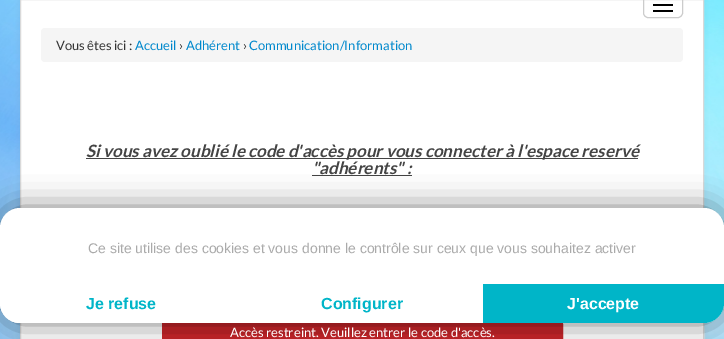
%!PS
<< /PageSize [724 339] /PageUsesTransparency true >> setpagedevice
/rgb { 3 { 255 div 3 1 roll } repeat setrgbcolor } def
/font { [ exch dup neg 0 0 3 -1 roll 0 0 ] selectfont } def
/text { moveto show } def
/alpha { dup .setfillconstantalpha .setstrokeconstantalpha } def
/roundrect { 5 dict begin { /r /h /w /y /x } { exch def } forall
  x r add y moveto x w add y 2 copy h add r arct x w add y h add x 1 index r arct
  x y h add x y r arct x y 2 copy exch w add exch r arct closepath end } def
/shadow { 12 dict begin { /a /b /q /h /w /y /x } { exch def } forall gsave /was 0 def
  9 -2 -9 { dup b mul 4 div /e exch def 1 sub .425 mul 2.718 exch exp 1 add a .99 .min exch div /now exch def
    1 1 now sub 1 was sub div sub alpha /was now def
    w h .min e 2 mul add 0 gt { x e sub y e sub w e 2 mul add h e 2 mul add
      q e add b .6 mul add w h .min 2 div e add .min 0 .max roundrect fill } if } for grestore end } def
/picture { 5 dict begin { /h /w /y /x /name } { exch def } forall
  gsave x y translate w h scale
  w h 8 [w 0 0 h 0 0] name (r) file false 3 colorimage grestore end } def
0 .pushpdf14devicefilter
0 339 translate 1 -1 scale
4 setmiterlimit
255 255 255 rgb
0 0 724 339 rectfill
(img_01.rgb) 0 0 724 339 picture
0 0 0 rgb
20 -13 684 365 4 3 0.05 shadow
255 255 255 rgb
20.5 -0.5 moveto 683 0 rlineto 0 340 rlineto -683 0 rlineto closepath gsave fill grestore
217 217 217 rgb
stroke
204 204 204 rgb
643.5 -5.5 39 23 4.5 roundrect stroke
0 0 0 rgb
653 4 20 2 rectfill
653 10 20 2 rectfill
245 245 245 rgb
41 28 642 34 4 roundrect fill
68 68 68 rgb
86 158 552 1 rectfill
312 175 100 1 rectfill
198 38 42 rgb
2 setlinewidth
163 316 399 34 9 roundrect stroke
172 317 moveto 381 0 rlineto 4.5 0 8 3.5 8 8 rcurveto 0 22 rlineto -397 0 rlineto 0 -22 rlineto 0 -4.5 3.5 -8 8 -8 rcurveto closepath fill
0 0 0 rgb
0 208 724 115 20 15 0.5 shadow
255 255 255 rgb
0 208 724 115 20 roundrect fill
0 284 moveto 241 0 rlineto 0 39 rlineto -221 0 rlineto -11 0 -20 -9 -20 -20 rcurveto closepath fill
0 181 200 rgb
483 284 moveto 241 0 rlineto 0 19 rlineto 0 11 -9 20 -20 20 rcurveto -221 0 rlineto closepath fill
/Lato-Regular 13 font
51 51 51 rgb
(Vous êtes ici :) 56 50 text
0 136 204 rgb
(Accueil) 135 50 text
51 51 51 rgb
(›) 179 50 text
0 136 204 rgb
(Adhérent) 186 50 text
51 51 51 rgb
(›) 243 50 text
0 136 204 rgb
(Communication/Information) 249 50 text
/Lato-BoldItalic 17 font
68 68 68 rgb
(Si vous avez oublié le code d'accès pour vous connecter à l'espace reservé) 86 157 text
("adhérents" :) 312 174 text
/Lato-Regular 13 font
255 255 255 rgb
(Accès restreint. Veuillez entrer le code d'accès.) 230 337 text
/LiberationSans-Regular 14 font
170 170 170 rgb
(Ce site utilise des cookies et vous donne le contrôle sur ceux que vous souhaitez activer) 88 253 text
/LiberationSans-Bold 16 font
0 181 200 rgb
(Je refuse) 86 309 text
(Configurer) 321 309 text
255 255 255 rgb
(J'accepte) 567 309 text
.poppdf14devicefilter showpage
